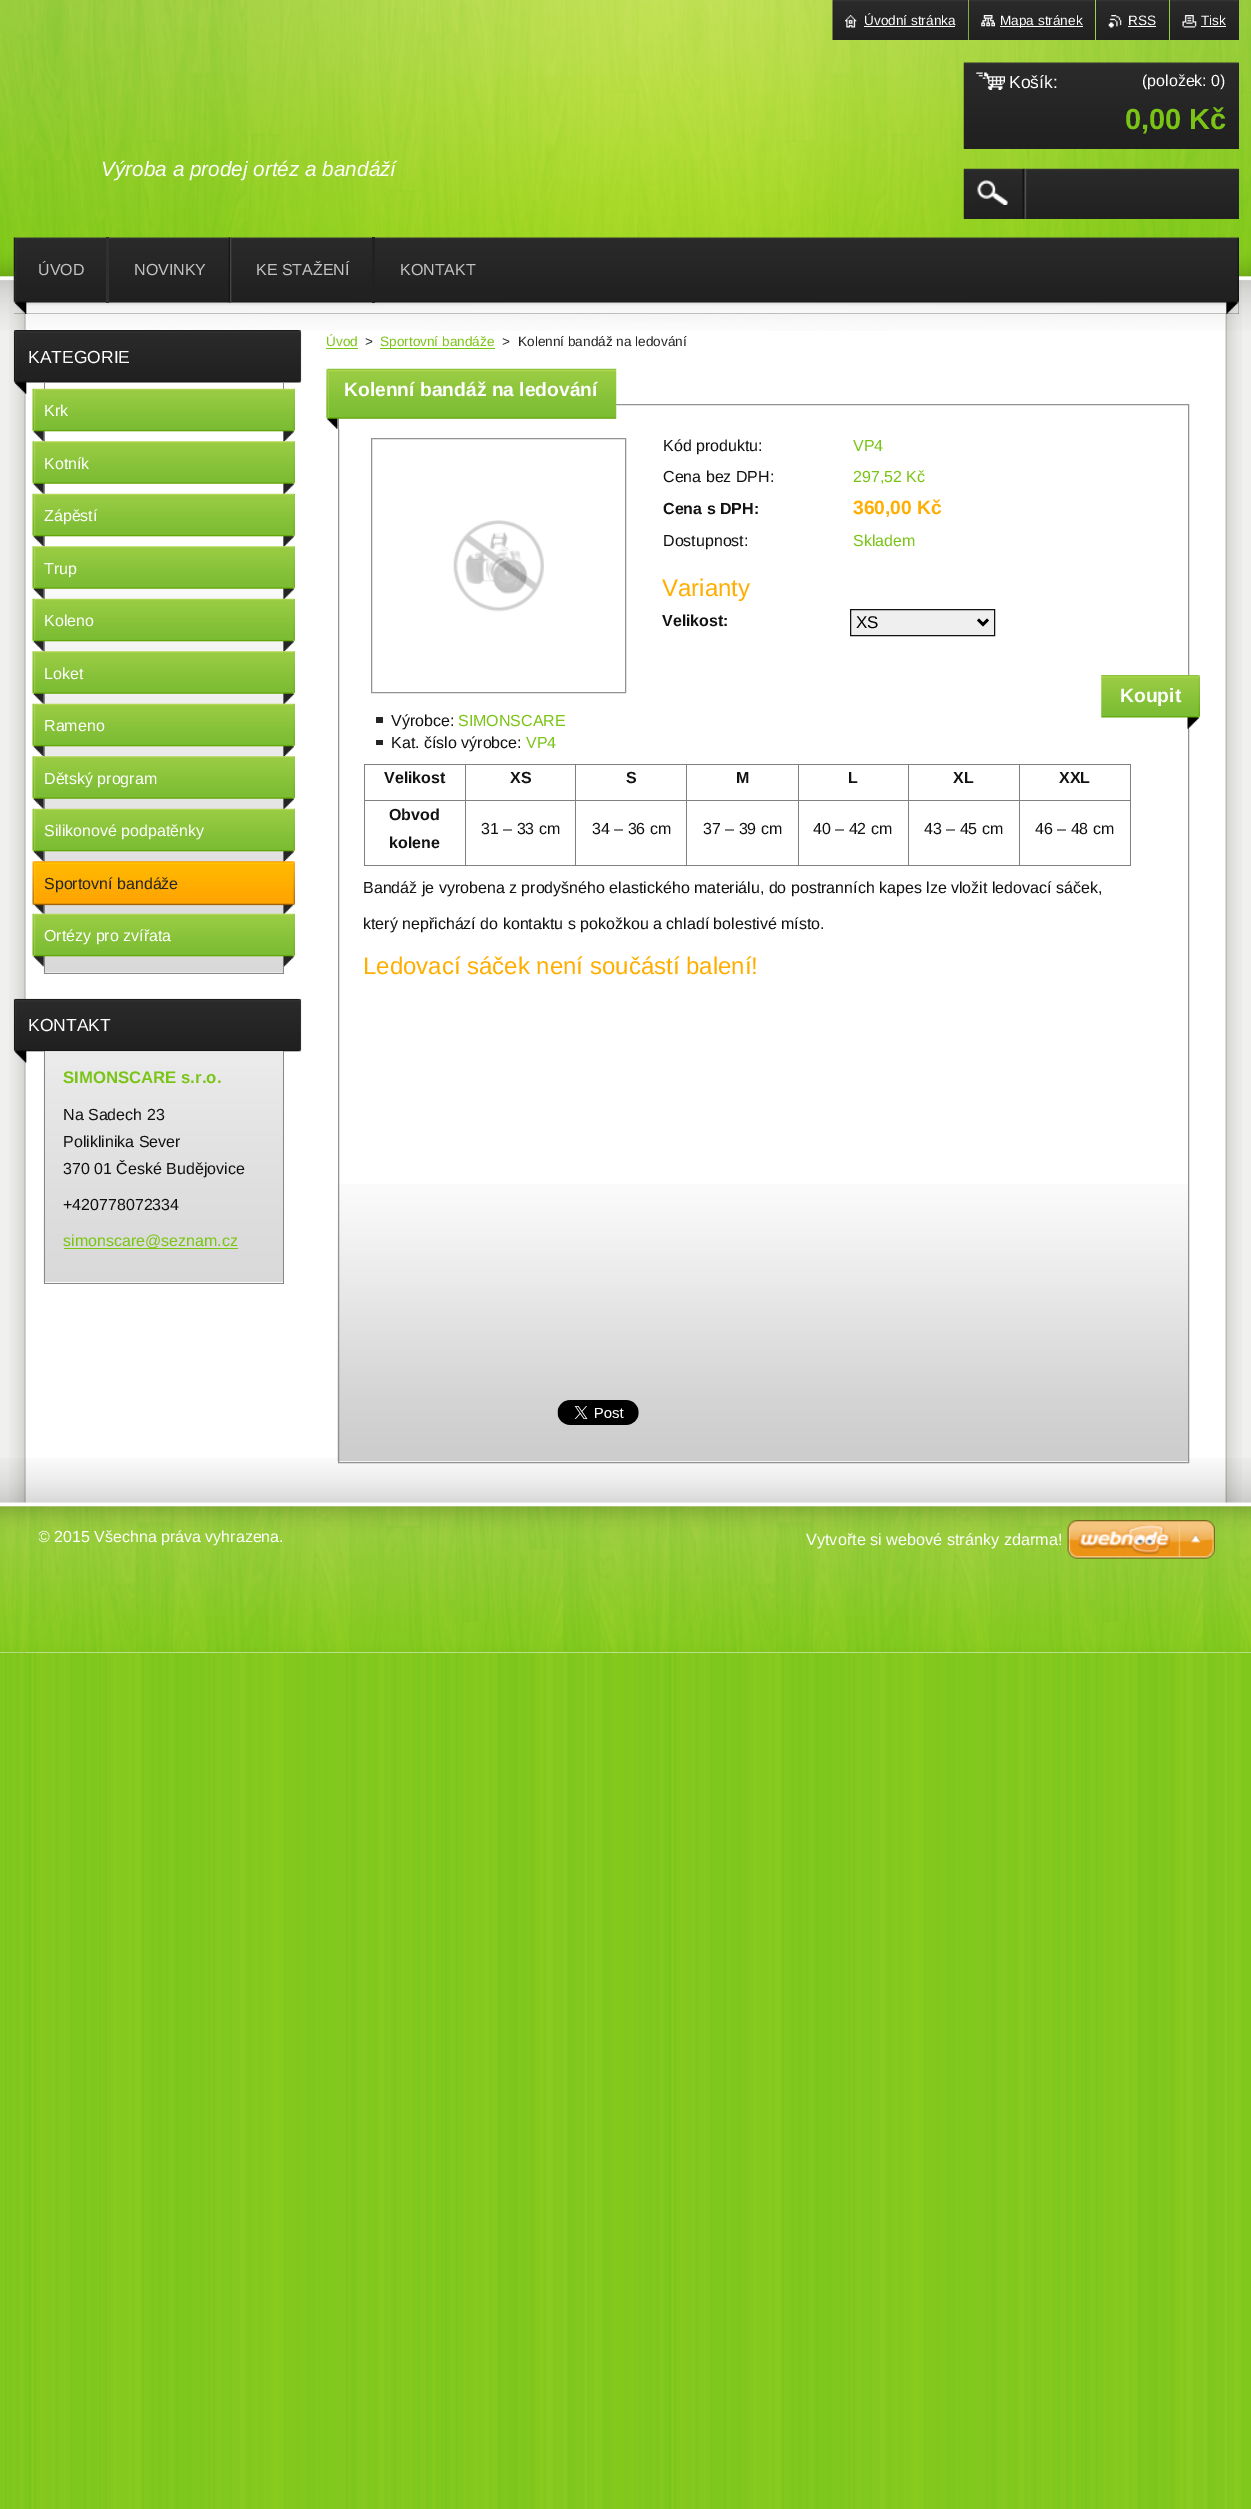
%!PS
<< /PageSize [1251 2509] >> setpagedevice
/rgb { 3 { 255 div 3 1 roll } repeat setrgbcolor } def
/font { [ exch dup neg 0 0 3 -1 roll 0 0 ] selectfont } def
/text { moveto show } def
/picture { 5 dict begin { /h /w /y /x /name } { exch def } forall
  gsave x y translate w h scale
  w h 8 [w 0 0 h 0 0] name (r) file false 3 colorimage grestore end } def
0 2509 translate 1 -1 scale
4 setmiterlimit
129 200 29 rgb
0 0 1251 2509 rectfill
(img_01.rgb) 5 1653 1236 856 picture
240 240 238 rgb
0 279 1251 1374 rectfill
(img_02.rgb) 9 279 1233 1374 picture
(img_03.rgb) 0 0 1251 331 picture
(img_04.rgb) 0 1458 1251 195 picture
37 37 37 rgb
967 0 1 40 rectfill
(img_05.rgb) 832 0 136 40 picture
(img_06.rgb) 845 15 12 13 picture
255 255 255 rgb
864 26 91 1 rectfill
(img_07.rgb) 968 0 127 40 picture
(img_08.rgb) 981 15 14 12 picture
1000 26 83 1 rectfill
(img_09.rgb) 1096 0 73 40 picture
(img_10.rgb) 1108 15 14 13 picture
1128 26 28 1 rectfill
(img_11.rgb) 1170 0 69 40 picture
(img_12.rgb) 1182 15 15 13 picture
1201 26 25 1 rectfill
37 37 37 rgb
964 63 275 86 rectfill
(img_13.rgb) 963 62 276 87 picture
(img_14.rgb) 976 72 29 18 picture
964 169 275 50 rectfill
(img_15.rgb) 963 168 276 51 picture
(img_16.rgb) 977 180 31 25 picture
(img_17.rgb) 1022 168 5 51 picture
18 18 18 rgb
14 238 1225 76 rectfill
(img_18.rgb) 13 237 1226 77 picture
48 48 48 rgb
106 237 3 66 rectfill
(img_19.rgb) 228 237 4 66 picture
33 33 33 rgb
372 237 3 66 rectfill
135 135 135 rgb
283 383 1 591 rectfill
(img_21.rgb) 43 588 240 385 picture
44 973 240 1 rectfill
44 383 1 591 rectfill
(img_20.rgb) 13 330 289 64 picture
(img_22.rgb) 32 388 263 54 picture
(img_23.rgb) 32 441 263 53 picture
(img_24.rgb) 32 493 263 54 picture
(img_25.rgb) 32 546 263 53 picture
(img_26.rgb) 32 598 263 54 picture
(img_27.rgb) 32 651 263 53 picture
(img_28.rgb) 32 703 263 54 picture
(img_29.rgb) 32 756 263 53 picture
(img_30.rgb) 32 808 263 54 picture
(img_31.rgb) 32 861 263 53 picture
(img_32.rgb) 32 913 263 54 picture
(img_33.rgb) 13 998 289 65 picture
(img_34.rgb) 43 1051 240 232 picture
283 1051 1 233 rectfill
44 1283 240 1 rectfill
44 1051 1 233 rectfill
122 196 22 rgb
64 1248 174 1 rectfill
326 348 32 1 rectfill
380 348 115 1 rectfill
255 255 255 rgb
339 1458 849 4 rectfill
(img_36.rgb) 337 1184 851 278 picture
146 146 146 rgb
338.5 404.5 850 1058 rectstroke
(img_35.rgb) 326 368 291 61 picture
239 239 239 rgb
850.5 609.5 moveto 144 0 rlineto 0 26 rlineto -144 0 rlineto closepath gsave fill grestore
18 18 18 rgb
stroke
0 0 0 rgb
2.5 setlinewidth
978 619.5 moveto 5 5 rlineto 5 -5 rlineto stroke
(img_37.rgb) 1101 675 99 54 picture
146 146 146 rgb
1 setlinewidth
371.5 438.5 254 254 rectstroke
(img_38.rgb) 453 520 91 92 picture
37 37 37 rgb
376 717 7 6 rectfill
376 740 7 5 rectfill
128 128 128 rgb
364 764 767 1 rectfill
1130 764 1 102 rectfill
364 865 767 1 rectfill
364 764 1 102 rectfill
1019 800 112 1 rectfill
1019 800 1 66 rectfill
908 800 112 1 rectfill
908 800 1 66 rectfill
798 800 111 1 rectfill
798 800 1 66 rectfill
686 800 113 1 rectfill
686 800 1 66 rectfill
575 800 113 1 rectfill
575 800 1 66 rectfill
465 800 111 1 rectfill
465 800 1 66 rectfill
364 800 102 1 rectfill
465 764 1 37 rectfill
575 764 1 37 rectfill
686 764 1 37 rectfill
798 764 1 37 rectfill
908 764 1 37 rectfill
1019 764 1 37 rectfill
(img_39.rgb) 557 1400 82 25 picture
(img_40.rgb) 1067 1520 148 39 picture
/LiberationSans-Regular 13.6 font
255 255 255 rgb
(Úvodní stránka) 864 25 text
(Mapa stránek) 1000 25 text
(RSS) 1128 25 text
(Tisk) 1201 25 text
/LiberationSans-Regular 17.5 font
(Košík:) 1009 88 text
/LiberationSans-Regular 16 font
(\(položek: 0\)) 1142 86 text
/LiberationSans-Bold 29 font
122 196 22 rgb
(0,00 Kč) 1125 129 text
/LiberationSans-Italic 20.75 font
255 255 255 rgb
(Výroba a prodej ortéz a bandáží) 101 176 text
/LiberationSans-Regular 16 font
194 194 194 rgb
(ÚVOD) 38 275 text
(NOVINKY) 134 275 text
(KE STAŽENÍ) 256 275 text
(KONTAKT) 400 275 text
/LiberationSans-Regular 17.5 font
255 255 255 rgb
(KATEGORIE) 28 363 text
/LiberationSans-Regular 16 font
(Krk) 44 416 text
(Kotník) 44 469 text
(Zápěstí) 44 521 text
(Trup) 44 574 text
(Koleno) 44 626 text
(Loket) 44 679 text
(Rameno) 44 731 text
(Dětský program) 44 784 text
(Silikonové podpatěnky) 44 836 text
37 37 37 rgb
(Sportovní bandáže) 44 889 text
255 255 255 rgb
(Ortézy pro zvířata) 44 941 text
/LiberationSans-Regular 17.5 font
(KONTAKT) 28 1031 text
/LiberationSans-Bold 16.75 font
122 196 22 rgb
(SIMONSCARE s.r.o.) 63 1083 text
/LiberationSans-Regular 16 font
18 18 18 rgb
(Na Sadech 23) 63 1120 text
(Poliklinika Sever) 63 1147 text
(370 01 České Budějovice) 63 1174 text
(+420778072334) 63 1210 text
122 196 22 rgb
(simonscare@seznam.cz) 63 1246 text
/LiberationSans-Regular 13.6 font
(Úvod) 326 346 text
37 37 37 rgb
(>) 365 346 text
122 196 22 rgb
(Sportovní bandáže) 380 346 text
37 37 37 rgb
(>) 502 346 text
(Kolenní bandáž na ledování) 518 346 text
/LiberationSans-Bold 19.25 font
255 255 255 rgb
(Kolenní bandáž na ledování) 344 396 text
/LiberationSans-Regular 16 font
18 18 18 rgb
(Kód produktu:) 663 451 text
122 196 22 rgb
(VP4) 853 451 text
18 18 18 rgb
(Cena bez DPH:) 663 482 text
122 196 22 rgb
(297,52 Kč) 853 482 text
/LiberationSans-Bold 16 font
18 18 18 rgb
(Cena s DPH:) 663 514 text
/LiberationSans-Bold 19.25 font
255 174 0 rgb
(360,00 Kč) 853 514 text
/LiberationSans-Regular 16 font
18 18 18 rgb
(Dostupnost:) 663 546 text
122 196 22 rgb
(Skladem) 853 546 text
/LiberationSans-Regular 24 font
255 174 0 rgb
(Varianty) 662 596 text
/LiberationSans-Bold 16 font
18 18 18 rgb
(Velikost:) 662 626 text
/LiberationSans-Regular 17 font
0 0 0 rgb
(XS) 856 628 text
/LiberationSans-Bold 19.25 font
255 255 255 rgb
(Koupit) 1120 702 text
/LiberationSans-Regular 16 font
18 18 18 rgb
(Výrobce:) 391 726 text
122 196 22 rgb
(SIMONSCARE) 458 726 text
18 18 18 rgb
(Kat. číslo výrobce:) 391 748 text
122 196 22 rgb
(VP4) 526 748 text
/LiberationSans-Bold 16 font
18 18 18 rgb
(Velikost) 384 783 text
(XS) 510 783 text
(S) 626 783 text
(M) 736 783 text
(L) 848 783 text
(XL) 953 783 text
(XXL) 1059 783 text
(Obvod) 389 820 text
(kolene) 389 848 text
/LiberationSans-Regular 16 font
(31 – 33 cm) 481 834 text
(34 – 36 cm) 592 834 text
(37 – 39 cm) 703 834 text
(40 – 42 cm) 813 834 text
(43 – 45 cm) 924 834 text
(46 – 48 cm) 1035 834 text
(Bandáž je vyrobena z prodyšného elastického materiálu, do postranních kapes lze vložit ledovací sáček,) 363 893 text
(který nepřichází do kontaktu s pokožkou a chladí bolestivé místo.) 363 929 text
/LiberationSans-Regular 24 font
255 174 0 rgb
(Ledovací sáček není součástí balení!) 363 974 text
gsave
39 1521 1175 132 rectclip
/LiberationSans-Regular 16 font
255 255 255 rgb
(© 2015 Všechna práva vyhrazena.) 38 1542 text
grestore
/LiberationSans-Regular 16.25 font
255 255 255 rgb
(Vytvořte si webové stránky zdarma!) 806 1545 text
showpage
